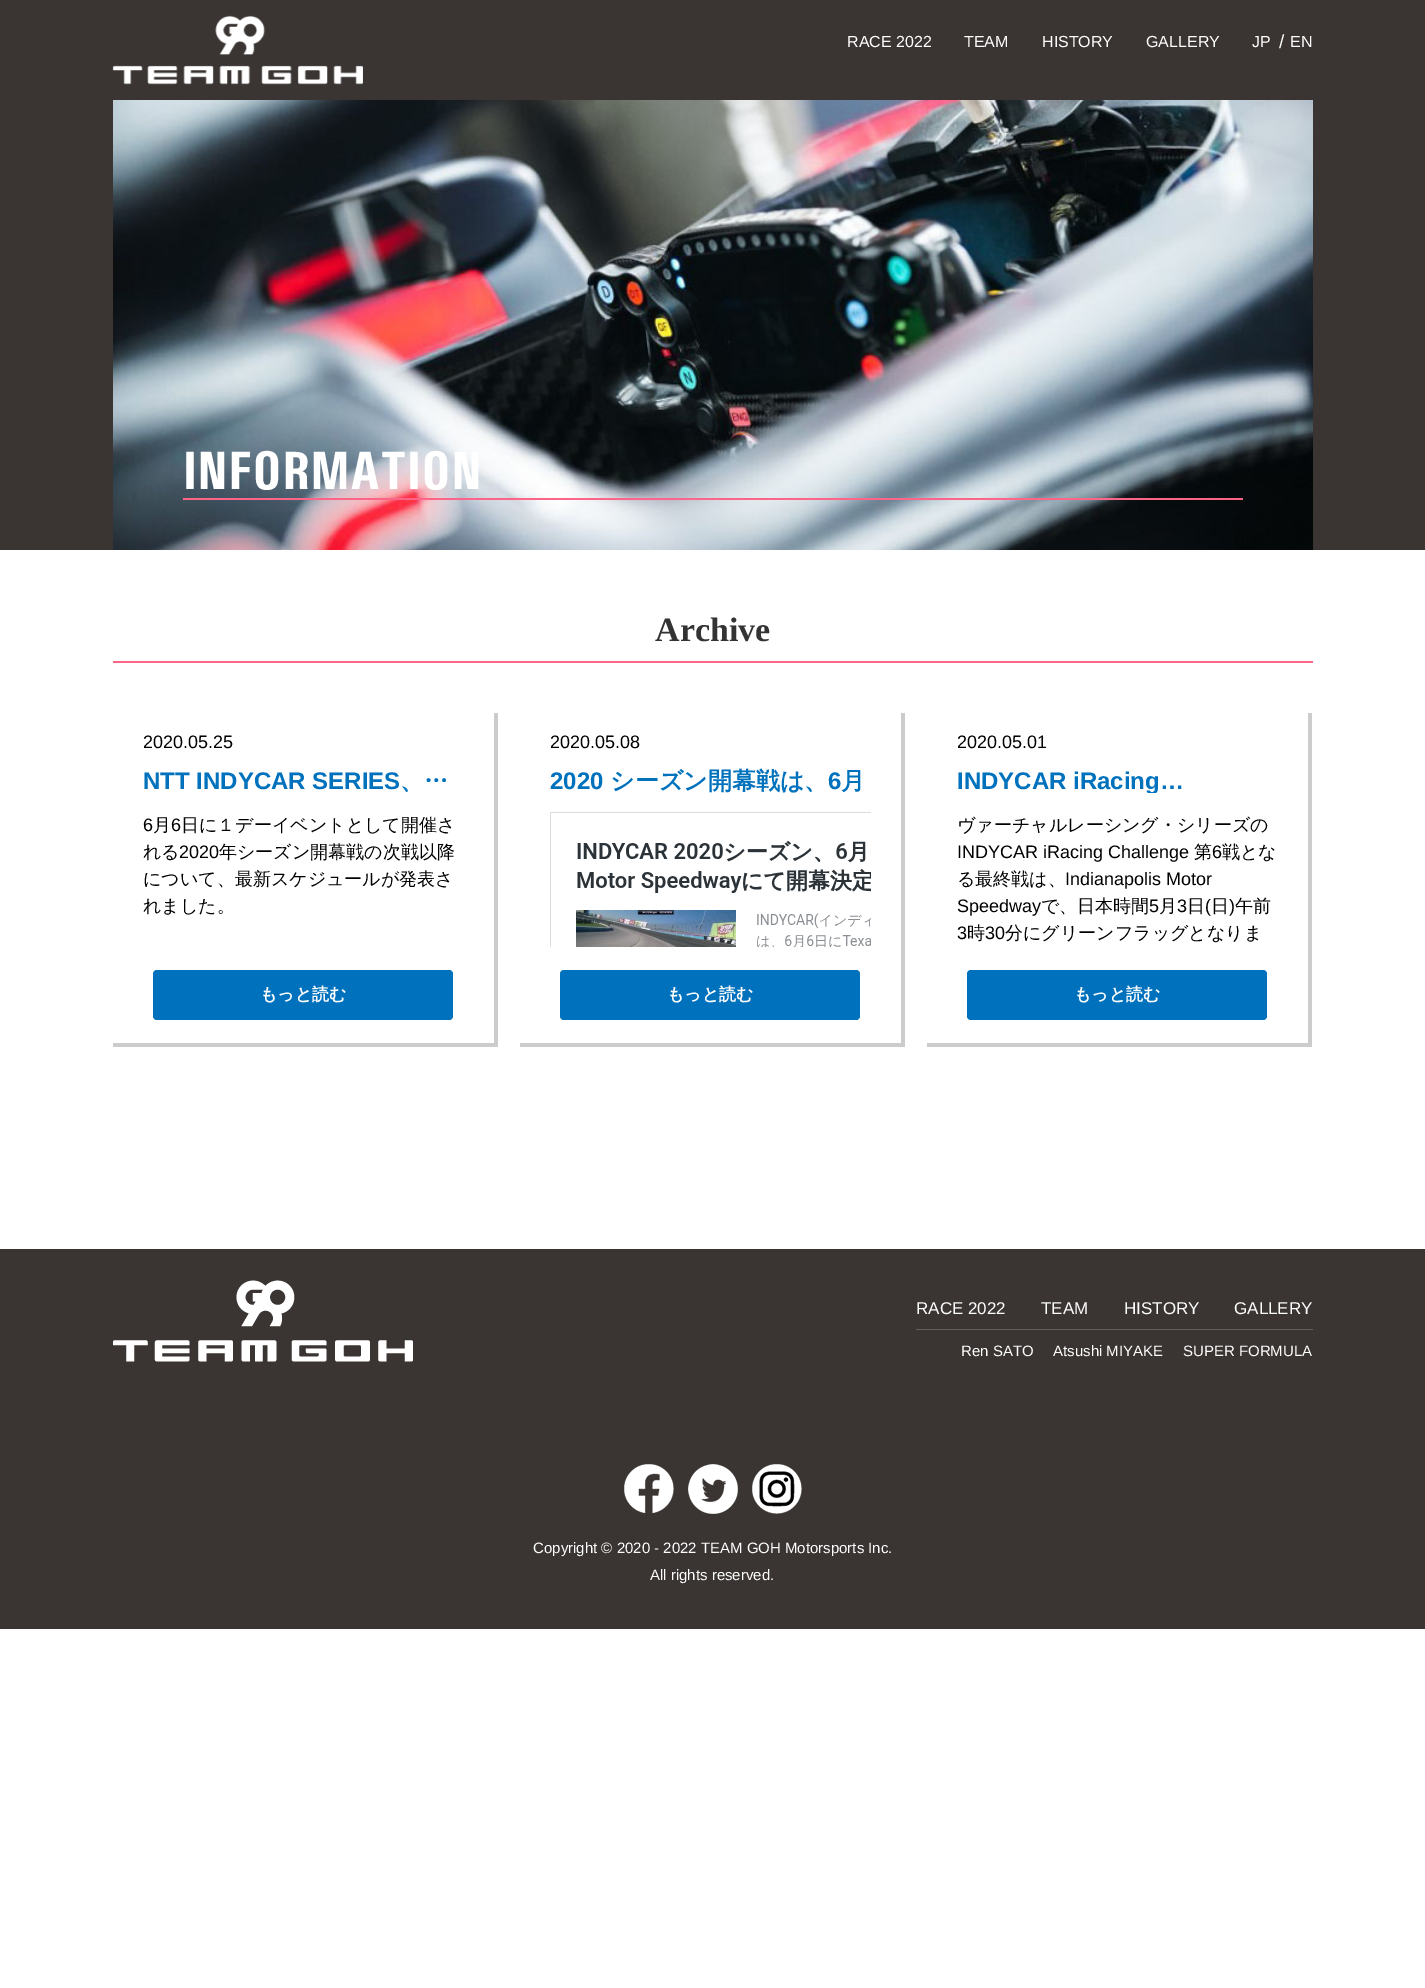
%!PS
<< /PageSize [1425 1988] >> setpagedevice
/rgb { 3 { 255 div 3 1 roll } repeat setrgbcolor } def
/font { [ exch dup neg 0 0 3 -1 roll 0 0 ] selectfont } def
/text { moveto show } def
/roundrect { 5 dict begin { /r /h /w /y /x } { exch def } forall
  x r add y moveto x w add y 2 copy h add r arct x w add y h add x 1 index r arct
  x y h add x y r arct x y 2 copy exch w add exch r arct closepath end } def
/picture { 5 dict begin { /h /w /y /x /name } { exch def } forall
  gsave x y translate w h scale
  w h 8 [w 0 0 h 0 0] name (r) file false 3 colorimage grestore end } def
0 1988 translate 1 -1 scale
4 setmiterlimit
255 255 255 rgb
0 0 1425 1988 rectfill
58 53 51 rgb
0 0 1425 550 rectfill
(img_01.rgb) 112 15 251 70 picture
(img_02.rgb) 113 100 1200 450 picture
252 101 135 rgb
183 498 1060 2 rectfill
113 661 1200 2 rectfill
204 204 204 rgb
494 713 4 334 rectfill
113 1043 385 4 rectfill
0 113 188 rgb
153 970 300 50 4 roundrect fill
204 204 204 rgb
901 713 4 334 rectfill
520 1043 385 4 rectfill
(img_03.rgb) 550 812 321 135 picture
0 113 188 rgb
560 970 300 50 4 roundrect fill
204 204 204 rgb
1308 713 4 334 rectfill
927 1043 385 4 rectfill
0 113 188 rgb
967 970 300 50 4 roundrect fill
58 53 51 rgb
0 1249 1425 380 rectfill
(img_04.rgb) 113 1280 300 82 picture
97 97 97 rgb
916 1329 397 1 rectfill
(img_05.rgb) 624 1464 50 49 picture
(img_06.rgb) 688 1464 50 50 picture
(img_07.rgb) 752 1464 50 50 picture
/LiberationSans-Regular 16 font
255 255 255 rgb
(RACE 2022) 847 47 text
(TEAM) 964 47 text
(HISTORY) 1042 47 text
(GALLERY) 1146 47 text
(JP) 1252 47 text
/LiberationSans-Regular 19 font
(/) 1279 48 text
/LiberationSans-Regular 16 font
(EN) 1290 47 text
/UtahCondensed-Bold 54 font
(INFORMATION) 183 489 text
/LiberationSerif-Bold 34 font
51 51 51 rgb
(Archive) 655 641 text
/LiberationSans-Regular 18 font
0 0 0 rgb
(2020.05.25) 143 748 text
/LiberationSans-Bold 24 font
0 113 188 rgb
(NTT INDYCAR SERIES) 143 789 text
/WenQuanYiZenHei-Bold 24 font
(、…) 400 789 text
/LiberationSans-Regular 18 font
0 0 0 rgb
(6) 143 831 text
/WenQuanYiZenHei-Medium 18 font
(月) 153 831 text
/LiberationSans-Regular 18 font
(6) 171 831 text
/WenQuanYiZenHei-Medium 18 font
(日に１デーイベントとして開催さ) 181 831 text
(れる) 143 858 text
/LiberationSans-Regular 18 font
(2020) 179 858 text
/WenQuanYiZenHei-Medium 18 font
(年シーズン開幕戦の次戦以降) 219 858 text
(について、最新スケジュールが発表さ) 143 885 text
(れました。) 143 912 text
/WenQuanYiZenHei-Bold 17 font
255 255 255 rgb
(もっと読む) 260 1000 text
/LiberationSans-Regular 18 font
0 0 0 rgb
(2020.05.08) 550 748 text
/LiberationSans-Bold 24 font
0 113 188 rgb
(2020) 550 789 text
/WenQuanYiZenHei-Bold 24 font
(シーズン開幕戦は、) 610 789 text
/LiberationSans-Bold 24 font
(6) 828 789 text
/WenQuanYiZenHei-Bold 24 font
(月) 841 789 text
/WenQuanYiZenHei-Bold 17 font
255 255 255 rgb
(もっと読む) 667 1000 text
/LiberationSans-Regular 18 font
0 0 0 rgb
(2020.05.01) 957 748 text
gsave
957 769 321 24 rectclip
/LiberationSans-Bold 24 font
0 113 188 rgb
(INDYCAR iRacing…) 957 789 text
grestore
/WenQuanYiZenHei-Medium 18 font
(ヴァーチャルレーシング・シリーズの) 957 831 text
/LiberationSans-Regular 18 font
(INDYCAR iRacing Challenge) 957 858 text
/WenQuanYiZenHei-Medium 18 font
(第) 1194 858 text
/LiberationSans-Regular 18 font
(6) 1212 858 text
/WenQuanYiZenHei-Medium 18 font
(戦とな) 1222 858 text
(る最終戦は、) 957 885 text
/LiberationSans-Regular 18 font
(Indianapolis Motor) 1065 885 text
(Speedway) 957 912 text
/WenQuanYiZenHei-Medium 18 font
(で、日本時間) 1041 912 text
/LiberationSans-Regular 18 font
(5) 1149 912 text
/WenQuanYiZenHei-Medium 18 font
(月) 1159 912 text
/LiberationSans-Regular 18 font
(3) 1177 912 text
/WenQuanYiZenHei-Medium 18 font
(日) 1187 912 text
/LiberationSans-Regular 18 font
(\() 1205 912 text
/WenQuanYiZenHei-Medium 18 font
(日) 1211 912 text
/LiberationSans-Regular 18 font
(\)) 1229 912 text
/WenQuanYiZenHei-Medium 18 font
(午前) 1235 912 text
/LiberationSans-Regular 18 font
(3) 957 939 text
/WenQuanYiZenHei-Medium 18 font
(時) 967 939 text
/LiberationSans-Regular 18 font
(30) 985 939 text
/WenQuanYiZenHei-Medium 18 font
(分にグリーンフラッグとなりま) 1005 939 text
/WenQuanYiZenHei-Bold 17 font
255 255 255 rgb
(もっと読む) 1074 1000 text
/LiberationSans-Regular 17 font
(RACE 2022) 916 1314 text
(TEAM) 1041 1314 text
(HISTORY) 1124 1314 text
(GALLERY) 1234 1314 text
/LiberationSans-Regular 15 font
(Ren SATO) 961 1356 text
(Atsushi MIYAKE) 1053 1356 text
(SUPER FORMULA) 1183 1356 text
(Copyright © 2020 - 2022 TEAM GOH Motorsports Inc.) 533 1553 text
(All rights reserved.) 650 1580 text
showpage
